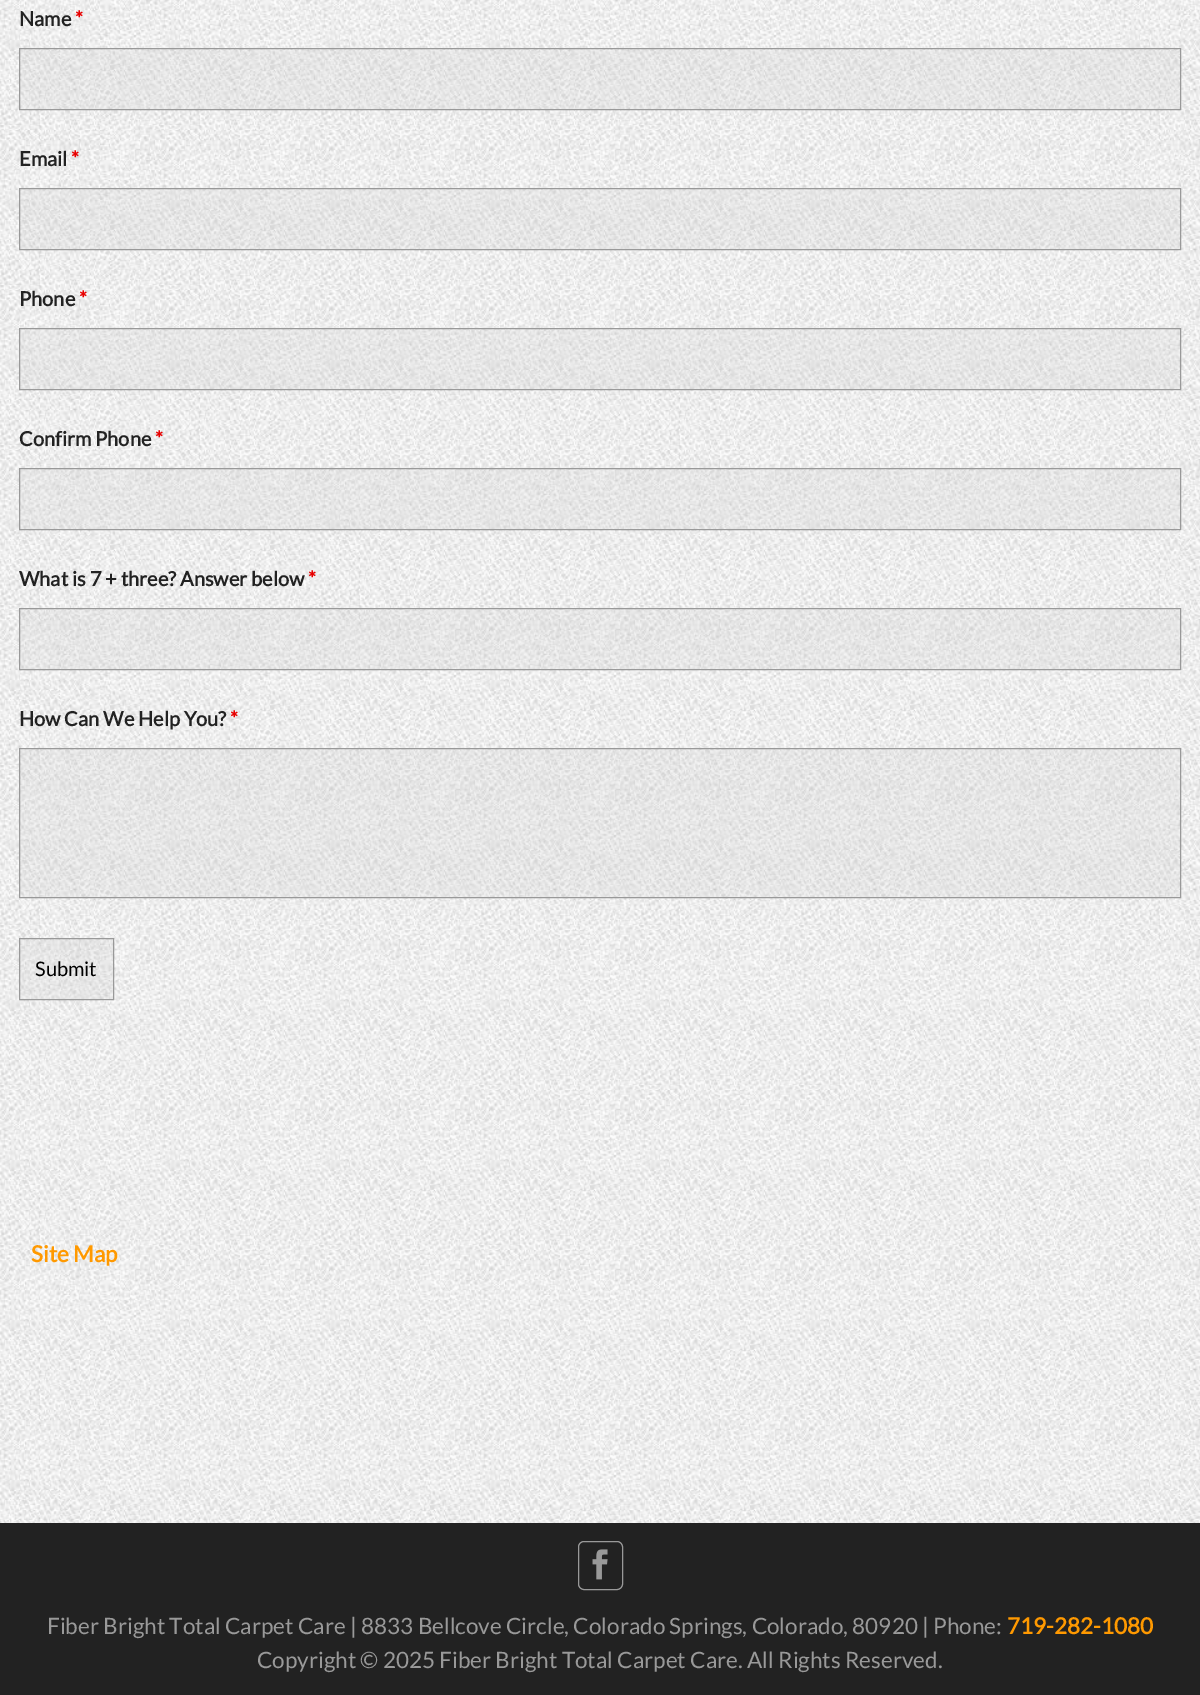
%!PS
<< /PageSize [1200 1695] /PageUsesTransparency true >> setpagedevice
/rgb { 3 { 255 div 3 1 roll } repeat setrgbcolor } def
/font { [ exch dup neg 0 0 3 -1 roll 0 0 ] selectfont } def
/text { moveto show } def
/alpha { dup .setfillconstantalpha .setstrokeconstantalpha } def
/roundrect { 5 dict begin { /r /h /w /y /x } { exch def } forall
  x r add y moveto x w add y 2 copy h add r arct x w add y h add x 1 index r arct
  x y h add x y r arct x y 2 copy exch w add exch r arct closepath end } def
/picture { 5 dict begin { /h /w /y /x /name } { exch def } forall
  gsave x y translate w h scale
  w h 8 [w 0 0 h 0 0] name (r) file false 3 colorimage grestore end } def
0 .pushpdf14devicefilter
0 1695 translate 1 -1 scale
4 setmiterlimit
255 255 255 rgb
0 0 1200 1695 rectfill
(img_01.rgb) 0 0 1200 1523 picture
0.2 alpha
200 200 200 rgb
19.5 48.5 moveto 1161 0 rlineto 0 61 rlineto -1161 0 rlineto closepath fill
1 alpha
153 153 153 rgb
19.5 48.5 moveto 1161 0 rlineto 0 61 rlineto -1161 0 rlineto closepath stroke
0.2 alpha
200 200 200 rgb
19.5 188.5 moveto 1161 0 rlineto 0 61 rlineto -1161 0 rlineto closepath fill
1 alpha
153 153 153 rgb
19.5 188.5 moveto 1161 0 rlineto 0 61 rlineto -1161 0 rlineto closepath stroke
0.2 alpha
200 200 200 rgb
19.5 328.5 moveto 1161 0 rlineto 0 61 rlineto -1161 0 rlineto closepath fill
1 alpha
153 153 153 rgb
19.5 328.5 moveto 1161 0 rlineto 0 61 rlineto -1161 0 rlineto closepath stroke
0.2 alpha
200 200 200 rgb
19.5 468.5 moveto 1161 0 rlineto 0 61 rlineto -1161 0 rlineto closepath fill
1 alpha
153 153 153 rgb
19.5 468.5 moveto 1161 0 rlineto 0 61 rlineto -1161 0 rlineto closepath stroke
0.2 alpha
200 200 200 rgb
19.5 608.5 moveto 1161 0 rlineto 0 61 rlineto -1161 0 rlineto closepath fill
1 alpha
153 153 153 rgb
19.5 608.5 moveto 1161 0 rlineto 0 61 rlineto -1161 0 rlineto closepath stroke
0.2 alpha
200 200 200 rgb
19.5 748.5 moveto 1161 0 rlineto 0 149 rlineto -1161 0 rlineto closepath fill
1 alpha
153 153 153 rgb
19.5 748.5 moveto 1161 0 rlineto 0 149 rlineto -1161 0 rlineto closepath stroke
0.2 alpha
200 200 200 rgb
19.5 938.5 moveto 94 0 rlineto 0 61 rlineto -94 0 rlineto closepath fill
1 alpha
153 153 153 rgb
19.5 938.5 moveto 94 0 rlineto 0 61 rlineto -94 0 rlineto closepath stroke
34 34 34 rgb
0 1523 1200 172 rectfill
153 153 153 rgb
578.5 1541.5 44 48 5.5 roundrect stroke
(img_02.rgb) 592 1549 16 31 picture
/Lato-Bold 20 font
34 34 34 rgb
(Name) 19 26 text
232 0 0 rgb
(*) 75 26 text
34 34 34 rgb
(Email) 19 166 text
232 0 0 rgb
(*) 71 166 text
34 34 34 rgb
(Phone) 19 306 text
232 0 0 rgb
(*) 79 306 text
34 34 34 rgb
(Confirm Phone) 19 446 text
232 0 0 rgb
(*) 155 446 text
34 34 34 rgb
(What is 7 + three? Answer below) 19 586 text
232 0 0 rgb
(*) 308 586 text
34 34 34 rgb
(How Can We Help You?) 19 726 text
232 0 0 rgb
(*) 230 726 text
/Lato-Regular 20 font
0 0 0 rgb
(Submit) 35 976 text
/Lato-Bold 22.5 font
255 153 0 rgb
(Site Map) 31 1262 text
/Lato-Regular 22.5 font
153 153 153 rgb
(Fiber Bright Total Carpet Care | 8833 Bellcove Circle, Colorado Springs, Colorado, 80920 | Phone:) 47 1634 text
/Lato-Bold 22.5 font
255 153 0 rgb
(719-282-1080) 1007 1634 text
/Lato-Regular 22.5 font
153 153 153 rgb
(Copyright © 2025 Fiber Bright Total Carpet Care. All Rights Reserved.) 257 1668 text
.poppdf14devicefilter showpage
